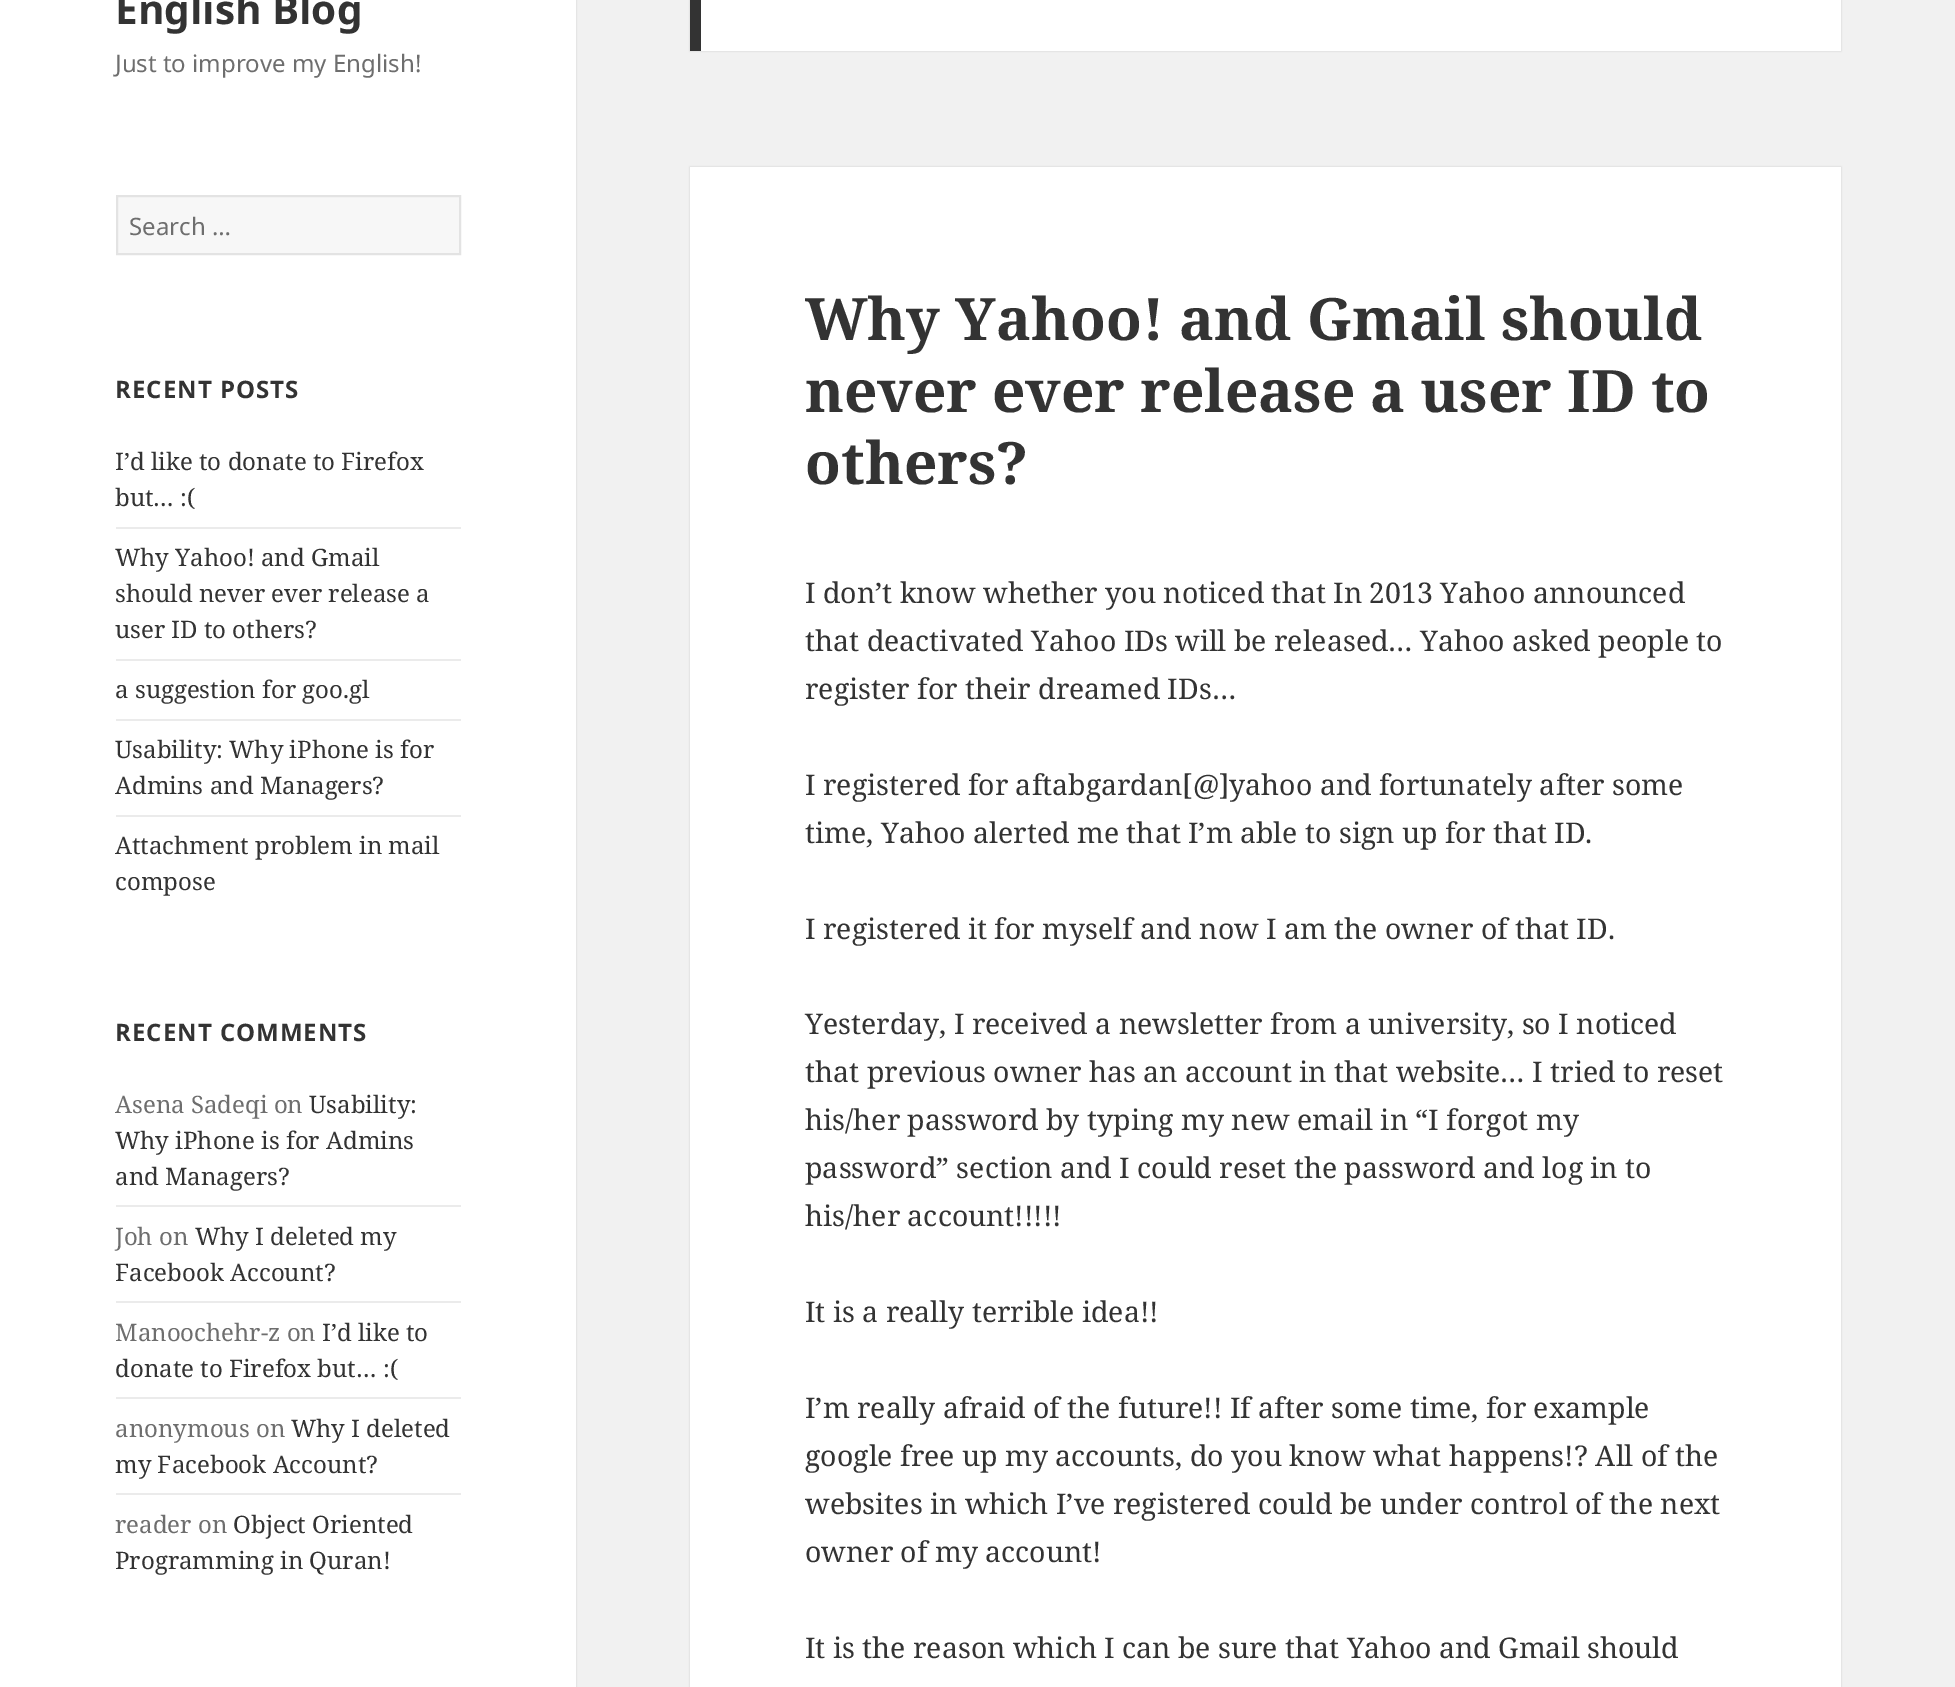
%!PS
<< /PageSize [1955 1687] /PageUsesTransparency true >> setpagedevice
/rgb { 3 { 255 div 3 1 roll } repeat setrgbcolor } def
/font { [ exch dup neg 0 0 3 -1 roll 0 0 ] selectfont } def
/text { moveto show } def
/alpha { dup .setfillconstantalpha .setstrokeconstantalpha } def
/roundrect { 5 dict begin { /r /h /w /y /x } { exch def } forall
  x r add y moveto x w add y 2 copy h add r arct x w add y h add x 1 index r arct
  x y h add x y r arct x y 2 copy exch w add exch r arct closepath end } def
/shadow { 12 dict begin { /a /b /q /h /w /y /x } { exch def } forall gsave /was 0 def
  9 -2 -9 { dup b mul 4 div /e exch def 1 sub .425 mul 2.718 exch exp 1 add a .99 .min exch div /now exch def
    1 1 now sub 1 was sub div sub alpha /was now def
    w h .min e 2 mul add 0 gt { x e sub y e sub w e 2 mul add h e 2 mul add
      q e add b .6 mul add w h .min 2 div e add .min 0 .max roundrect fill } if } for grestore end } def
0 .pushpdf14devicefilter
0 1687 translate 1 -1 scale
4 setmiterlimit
241 241 241 rgb
0 0 1955 1687 rectfill
0 0 0 rgb
0 0 576 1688 0 1 0.15 shadow
255 255 255 rgb
0 0 576 1687 rectfill
247 247 247 rgb
117 196 moveto 343 0 rlineto 0 58 rlineto -343 0 rlineto closepath gsave fill grestore
227 227 227 rgb
2 setlinewidth
stroke
235 235 235 rgb
116 527 345 2 rectfill
116 659 345 2 rectfill
116 719 345 2 rectfill
116 815 345 2 rectfill
116 1205 345 2 rectfill
116 1301 345 2 rectfill
116 1397 345 2 rectfill
116 1493 345 2 rectfill
0 0 0 rgb
690 -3 1151 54 0 1 0.15 shadow
255 255 255 rgb
701 0 1140 51 rectfill
51 51 51 rgb
690 0 11 51 rectfill
0 0 0 rgb
690 167 1151 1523 0 1 0.15 shadow
255 255 255 rgb
690 167 1151 1520 rectfill
/NotoSans-Bold 40.5 font
51 51 51 rgb
(English Blog) 115 24 text
/NotoSans-Regular 24 font
110 110 110 rgb
(Just to improve my English!) 115 72 text
(Search …) 129 235 text
/NotoSans-Bold 24 font
51 51 51 rgb
115 398 moveto 1 0 (RECENT POSTS) ashow
/NotoSerif-Regular 24 font
(I’d like to donate to Firefox) 115 470 text
(but… :\() 115 506 text
(Why Yahoo! and Gmail) 115 566 text
(should never ever release a) 115 602 text
(user ID to others?) 115 638 text
(a suggestion for goo.gl) 115 698 text
(Usability: Why iPhone is for) 115 758 text
(Admins and Managers?) 115 794 text
(Attachment problem in mail) 115 854 text
(compose) 115 890 text
/NotoSans-Bold 24 font
115 1041 moveto 1 0 (RECENT COMMENTS) ashow
/NotoSerif-Regular 24 font
110 110 110 rgb
(Asena Sadeqi on) 115 1113 text
51 51 51 rgb
(Usability:) 309 1113 text
(Why iPhone is for Admins) 115 1149 text
(and Managers?) 115 1185 text
110 110 110 rgb
(Joh on) 115 1245 text
51 51 51 rgb
(Why I deleted my) 195 1245 text
(Facebook Account?) 115 1281 text
110 110 110 rgb
(Manoochehr-z on) 115 1341 text
51 51 51 rgb
(I’d like to) 322 1341 text
(donate to Firefox but… :\() 115 1377 text
110 110 110 rgb
(anonymous on) 115 1437 text
51 51 51 rgb
(Why I deleted) 291 1437 text
(my Facebook Account?) 115 1473 text
110 110 110 rgb
(reader on) 115 1533 text
51 51 51 rgb
(Object Oriented) 233 1533 text
(Programming in Quran!) 115 1569 text
/NotoSerif-Bold 58.5 font
(Why Yahoo! and Gmail should) 805 340 text
(never ever release a user ID to) 805 412 text
(others?) 805 484 text
/NotoSerif-Regular 28.5 font
(I don’t know whether you noticed that In 2013 Yahoo announced) 805 603 text
(that deactivated Yahoo IDs will be released… Yahoo asked people to) 805 651 text
(register for their dreamed IDs…) 805 699 text
(I registered for aftabgardan[@]yahoo and fortunately after some) 805 795 text
(time, Yahoo alerted me that I’m able to sign up for that ID.) 805 843 text
(I registered it for myself and now I am the owner of that ID.) 805 939 text
(Yesterday, I received a newsletter from a university, so I noticed) 805 1034 text
(that previous owner has an account in that website… I tried to reset) 805 1082 text
(his/her password by typing my new email in “I forgot my) 805 1130 text
(password” section and I could reset the password and log in to) 805 1178 text
(his/her account!!!!!) 805 1226 text
(It is a really terrible idea!!) 805 1322 text
(I’m really afraid of the future!! If after some time, for example) 805 1418 text
(google free up my accounts, do you know what happens!? All of the) 805 1466 text
(websites in which I’ve registered could be under control of the next) 805 1514 text
(owner of my account!) 805 1562 text
(It is the reason which I can be sure that Yahoo and Gmail should) 805 1658 text
.poppdf14devicefilter showpage
